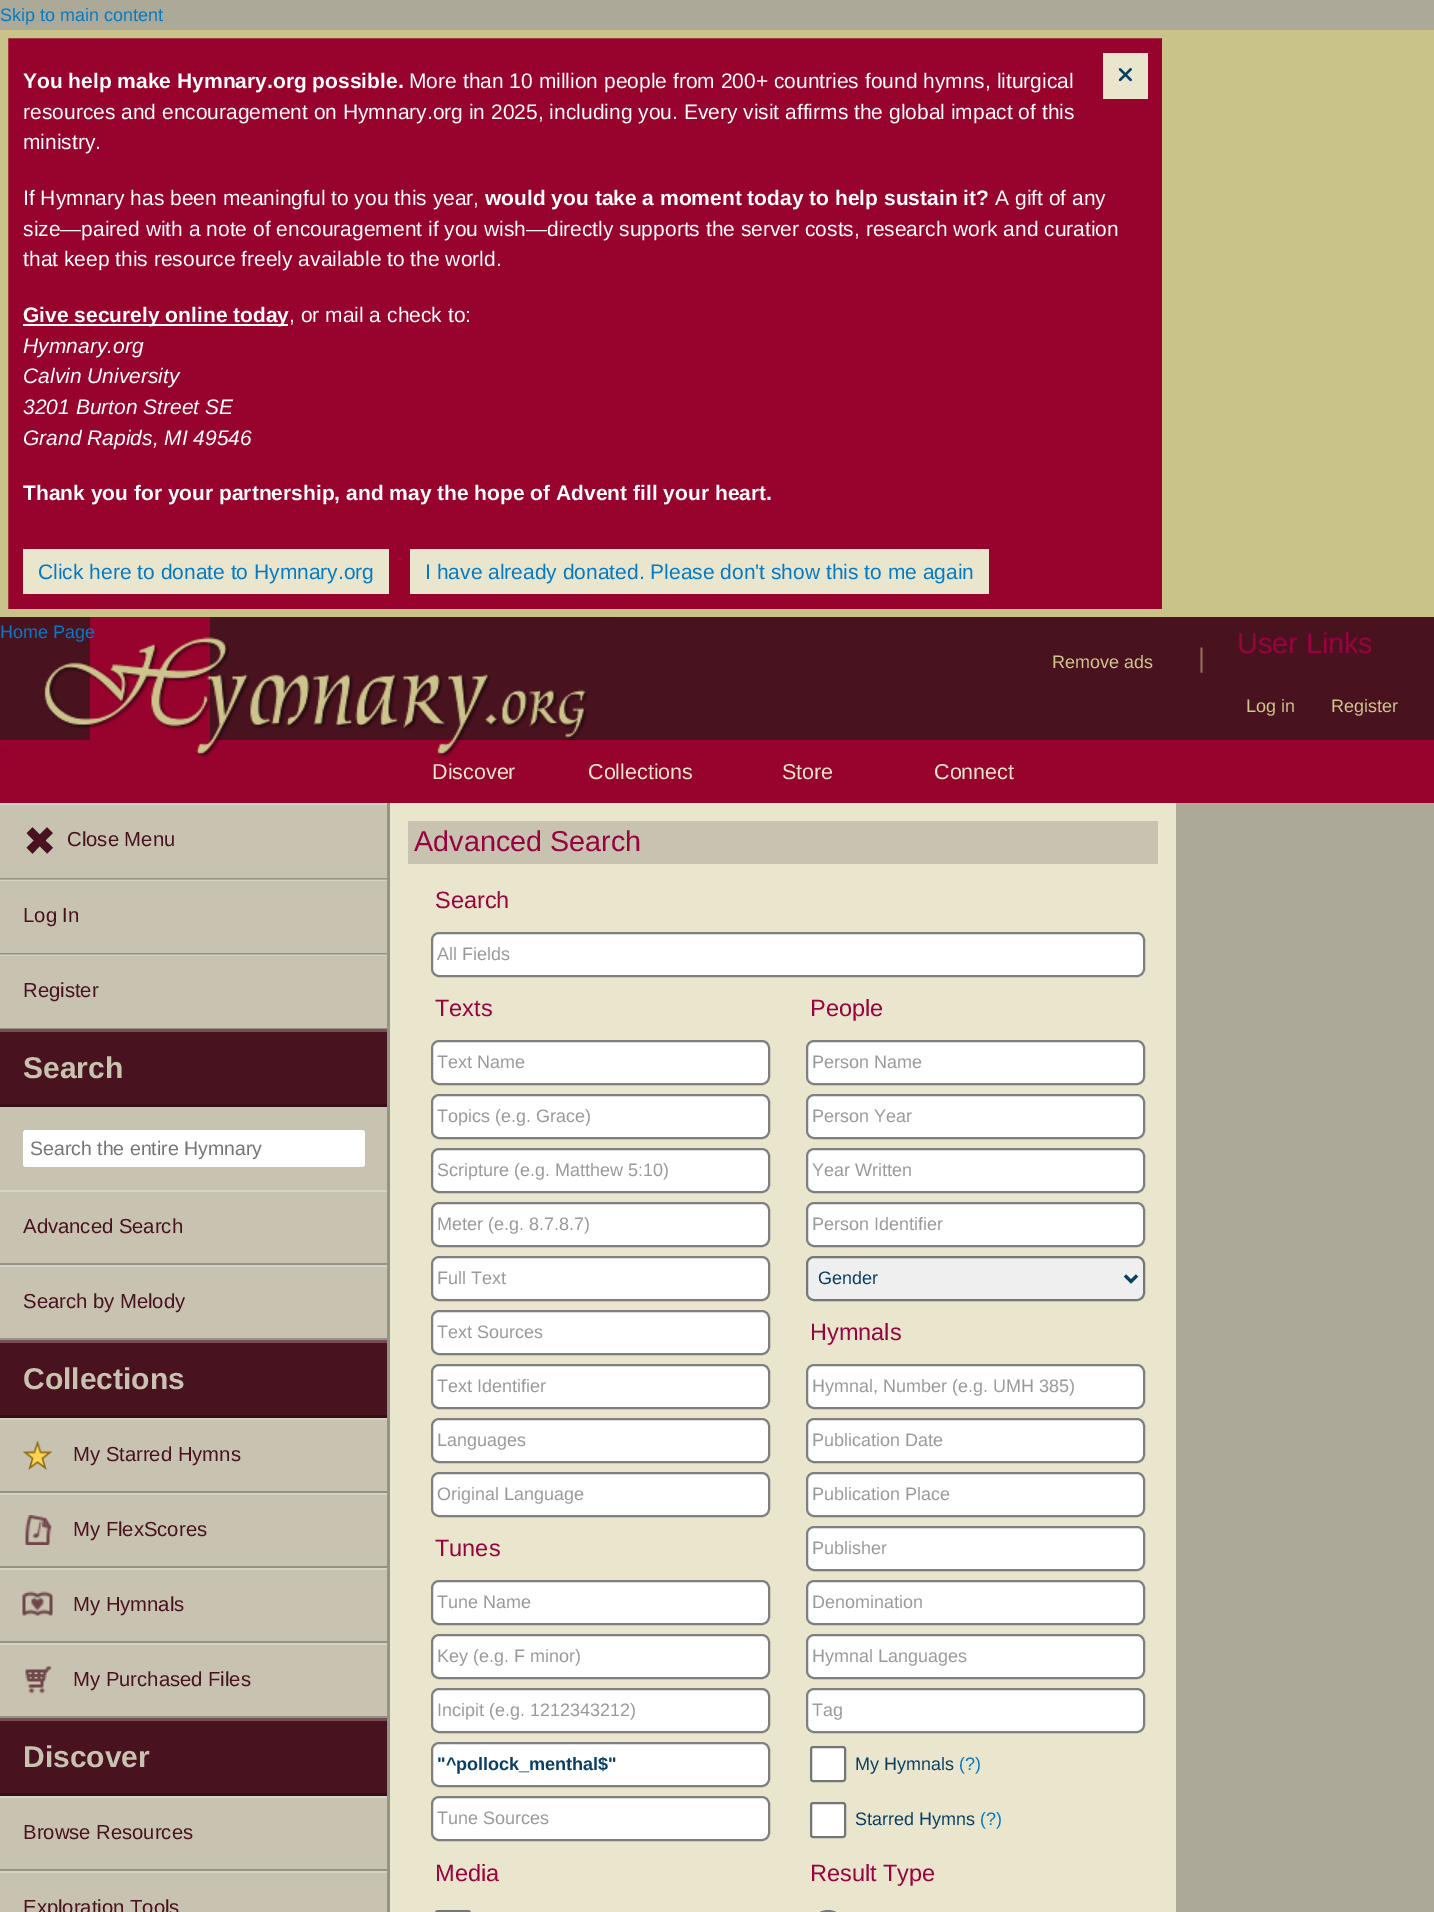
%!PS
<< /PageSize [1434 1912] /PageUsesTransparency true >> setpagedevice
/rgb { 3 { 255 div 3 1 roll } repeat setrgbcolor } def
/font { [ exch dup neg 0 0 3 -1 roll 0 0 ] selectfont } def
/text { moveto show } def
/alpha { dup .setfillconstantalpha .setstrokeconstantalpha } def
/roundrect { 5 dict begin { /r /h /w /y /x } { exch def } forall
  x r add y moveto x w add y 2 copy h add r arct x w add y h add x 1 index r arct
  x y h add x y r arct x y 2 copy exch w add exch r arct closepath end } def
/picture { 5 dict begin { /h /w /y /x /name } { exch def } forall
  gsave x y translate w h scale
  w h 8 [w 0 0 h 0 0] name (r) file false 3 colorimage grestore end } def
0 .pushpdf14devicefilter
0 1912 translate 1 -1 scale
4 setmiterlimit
173 169 153 rgb
0 0 1434 1912 rectfill
201 195 138 rgb
1170 30 264 587 rectfill
152 3 46 rgb
4 34 moveto 1162 0 rlineto 0 579 rlineto -1162 0 rlineto closepath gsave fill grestore
201 195 138 rgb
8 setlinewidth
stroke
255 255 255 rgb
23 324 265 2 rectfill
233 230 205 rgb
1103 53 45 46 rectfill
(img_01.rgb) 1118 68 14 14 picture
23 549 366 45 rectfill
410 549 579 45 rectfill
73 18 31 rgb
0 617 1434 123 rectfill
152 3 46 rgb
90 617 120 123 rectfill
0 740 1434 63 rectfill
(img_02.rgb) 2 617 607 141 picture
200 195 176 rgb
0 805 387 1107 rectfill
214 210 196 rgb
0 955 387 1 rectfill
150 146 132 rgb
387 803 3 1109 rectfill
214 210 196 rgb
0 803 387 2 rectfill
150 146 132 rgb
0 878 387 2 rectfill
0.25 alpha
255 255 255 rgb
0 879 387 2 rectfill
1 alpha
150 146 132 rgb
0 953 387 1 rectfill
176 173 163 rgb
0 954 387 1 rectfill
150 146 132 rgb
0 1028 387 1 rectfill
73 18 31 rgb
0 1032 387 72 rectfill
119 77 87 rgb
0 1029 387 3 rectfill
55 14 23 rgb
0 1104 387 3 rectfill
255 255 255 rgb
23 1130 342 37 3 roundrect fill
214 210 196 rgb
0 1190 387 2 rectfill
150 146 132 rgb
0 1263 387 2 rectfill
214 210 196 rgb
0 1265 387 2 rectfill
150 146 132 rgb
0 1338 387 2 rectfill
73 18 31 rgb
0 1343 387 72 rectfill
119 77 87 rgb
0 1340 387 3 rectfill
55 14 23 rgb
0 1415 387 3 rectfill
214 210 196 rgb
0 1418 387 2 rectfill
150 146 132 rgb
0 1491 387 2 rectfill
(img_03.rgb) 22 1440 31 30 picture
214 210 196 rgb
0 1493 387 2 rectfill
150 146 132 rgb
0 1566 387 2 rectfill
(img_04.rgb) 25 1515 27 30 picture
214 210 196 rgb
0 1568 387 2 rectfill
150 146 132 rgb
0 1641 387 2 rectfill
(img_05.rgb) 22 1591 31 25 picture
214 210 196 rgb
0 1643 387 2 rectfill
150 146 132 rgb
0 1716 387 2 rectfill
(img_06.rgb) 25 1666 27 28 picture
73 18 31 rgb
0 1721 387 72 rectfill
119 77 87 rgb
0 1718 387 3 rectfill
55 14 23 rgb
0 1793 387 3 rectfill
214 210 196 rgb
0 1796 387 2 rectfill
150 146 132 rgb
0 1869 387 2 rectfill
214 210 196 rgb
0 1871 387 2 rectfill
233 230 205 rgb
390 803 786 1109 rectfill
200 195 176 rgb
408 821 750 43 rectfill
255 255 255 rgb
431 932 714 45 8 roundrect fill
0.5 alpha
0 0 0 rgb
2 setlinewidth
432 933 712 43 7 roundrect stroke
1 alpha
255 255 255 rgb
431 1040 339 45 8 roundrect fill
0.5 alpha
0 0 0 rgb
432 1041 337 43 7 roundrect stroke
1 alpha
255 255 255 rgb
431 1094 339 45 8 roundrect fill
0.5 alpha
0 0 0 rgb
432 1095 337 43 7 roundrect stroke
1 alpha
255 255 255 rgb
431 1148 339 45 8 roundrect fill
0.5 alpha
0 0 0 rgb
432 1149 337 43 7 roundrect stroke
1 alpha
255 255 255 rgb
431 1202 339 45 8 roundrect fill
0.5 alpha
0 0 0 rgb
432 1203 337 43 7 roundrect stroke
1 alpha
255 255 255 rgb
431 1256 339 45 8 roundrect fill
0.5 alpha
0 0 0 rgb
432 1257 337 43 7 roundrect stroke
1 alpha
255 255 255 rgb
431 1310 339 45 8 roundrect fill
0.5 alpha
0 0 0 rgb
432 1311 337 43 7 roundrect stroke
1 alpha
255 255 255 rgb
431 1364 339 45 8 roundrect fill
0.5 alpha
0 0 0 rgb
432 1365 337 43 7 roundrect stroke
1 alpha
255 255 255 rgb
431 1418 339 45 8 roundrect fill
0.5 alpha
0 0 0 rgb
432 1419 337 43 7 roundrect stroke
1 alpha
255 255 255 rgb
431 1472 339 45 8 roundrect fill
0.5 alpha
0 0 0 rgb
432 1473 337 43 7 roundrect stroke
1 alpha
255 255 255 rgb
431 1580 339 45 8 roundrect fill
0.5 alpha
0 0 0 rgb
432 1581 337 43 7 roundrect stroke
1 alpha
255 255 255 rgb
431 1634 339 45 8 roundrect fill
0.5 alpha
0 0 0 rgb
432 1635 337 43 7 roundrect stroke
1 alpha
255 255 255 rgb
431 1688 339 45 8 roundrect fill
0.5 alpha
0 0 0 rgb
432 1689 337 43 7 roundrect stroke
1 alpha
255 255 255 rgb
431 1742 339 45 8 roundrect fill
0.5 alpha
0 0 0 rgb
432 1743 337 43 7 roundrect stroke
1 alpha
255 255 255 rgb
431 1796 339 45 8 roundrect fill
0.5 alpha
0 0 0 rgb
432 1797 337 43 7 roundrect stroke
1 alpha
255 255 255 rgb
806 1040 339 45 8 roundrect fill
0.5 alpha
0 0 0 rgb
807 1041 337 43 7 roundrect stroke
1 alpha
255 255 255 rgb
806 1094 339 45 8 roundrect fill
0.5 alpha
0 0 0 rgb
807 1095 337 43 7 roundrect stroke
1 alpha
255 255 255 rgb
806 1148 339 45 8 roundrect fill
0.5 alpha
0 0 0 rgb
807 1149 337 43 7 roundrect stroke
1 alpha
255 255 255 rgb
806 1202 339 45 8 roundrect fill
0.5 alpha
0 0 0 rgb
807 1203 337 43 7 roundrect stroke
1 alpha
239 239 239 rgb
806 1256 339 45 8 roundrect fill
0.5 alpha
0 0 0 rgb
807 1257 337 43 7 roundrect stroke
1 alpha
10 63 100 rgb
3 setlinewidth
1125 1275.5 moveto 6 6 rlineto 6 -6 rlineto stroke
255 255 255 rgb
806 1364 339 45 8 roundrect fill
0.5 alpha
0 0 0 rgb
2 setlinewidth
807 1365 337 43 7 roundrect stroke
1 alpha
255 255 255 rgb
806 1418 339 45 8 roundrect fill
0.5 alpha
0 0 0 rgb
807 1419 337 43 7 roundrect stroke
1 alpha
255 255 255 rgb
806 1472 339 45 8 roundrect fill
0.5 alpha
0 0 0 rgb
807 1473 337 43 7 roundrect stroke
1 alpha
255 255 255 rgb
806 1526 339 45 8 roundrect fill
0.5 alpha
0 0 0 rgb
807 1527 337 43 7 roundrect stroke
1 alpha
255 255 255 rgb
806 1580 339 45 8 roundrect fill
0.5 alpha
0 0 0 rgb
807 1581 337 43 7 roundrect stroke
1 alpha
255 255 255 rgb
806 1634 339 45 8 roundrect fill
0.5 alpha
0 0 0 rgb
807 1635 337 43 7 roundrect stroke
1 alpha
255 255 255 rgb
806 1688 339 45 8 roundrect fill
0.5 alpha
0 0 0 rgb
807 1689 337 43 7 roundrect stroke
1 alpha
255 255 255 rgb
811 1747 34 34 2 roundrect gsave fill grestore
118 118 118 rgb
stroke
255 255 255 rgb
811 1803 34 34 2 roundrect gsave fill grestore
118 118 118 rgb
stroke
436 1911 34 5 2 roundrect stroke
811 1911 34 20 17 roundrect stroke
/LiberationSans-Regular 18 font
2 122 198 rgb
(Skip to main content) 0 21 text
/LiberationSans-Bold 21 font
255 255 255 rgb
(You help make Hymnary.org possible.) 23 88 text
/LiberationSans-Regular 21 font
(More than 10 million people from 200+ countries found hymns, liturgical) 409 88 text
(resources and encouragement on Hymnary.org in 2025, including you. Every visit affirms the global impact of this) 23 119 text
(ministry.) 23 149 text
(If Hymnary has been meaningful to you this year,) 23 205 text
/LiberationSans-Bold 21 font
(would you take a moment today to help sustain it?) 485 205 text
/LiberationSans-Regular 21 font
(A gift of any) 995 205 text
(size—paired with a note of encouragement if you wish—directly supports the server costs, research work and curation) 23 236 text
(that keep this resource freely available to the world.) 23 266 text
/LiberationSans-Bold 21 font
(Give securely online today) 23 322 text
/LiberationSans-Regular 21 font
(, or mail a check to:) 289 322 text
/LiberationSans-Italic 21 font
(Hymnary.org) 23 353 text
(Calvin University) 23 383 text
(3201 Burton Street SE) 23 414 text
(Grand Rapids, MI 49546) 23 445 text
/LiberationSans-Bold 21 font
(Thank you for your partnership, and may the hope of Advent fill your heart.) 23 500 text
/LiberationSans-Regular 21 font
2 122 198 rgb
(Click here to donate to Hymnary.org) 38 579 text
(I have already donated. Please don't show this to me again) 425 579 text
/LiberationSans-Regular 18 font
(Home Page) 0 638 text
206 196 141 rgb
(Remove ads) 1052 668 text
/LiberationSans-Regular 27 font
144 113 89 rgb
(|) 1198 667 text
/LiberationSans-Regular 28.75 font
152 2 62 rgb
(User Links) 1237 653 text
/LiberationSans-Regular 18 font
206 196 141 rgb
(Log in) 1246 712 text
(Register) 1331 712 text
/LiberationSans-Regular 21.5 font
233 230 205 rgb
(Discover) 432 779 text
(Collections) 588 779 text
(Store) 782 779 text
(Connect) 934 779 text
/DejaVuSans-Regular 40 font
73 18 31 rgb
(✖) 23 855 text
/LiberationSans-Regular 20.25 font
(Close Menu) 67 846 text
(Log In) 23 922 text
(Register) 23 997 text
/LiberationSans-Bold 30 font
200 195 176 rgb
(Search) 23 1078 text
/LiberationSans-Regular 19.5 font
117 117 117 rgb
(Search the entire Hymnary) 30 1155 text
/LiberationSans-Regular 20.25 font
73 18 31 rgb
(Advanced Search) 23 1233 text
(Search by Melody) 23 1308 text
/LiberationSans-Bold 30 font
200 195 176 rgb
(Collections) 23 1389 text
/LiberationSans-Regular 20.25 font
73 18 31 rgb
(My Starred Hymns) 73 1461 text
(My FlexScores) 73 1536 text
(My Hymnals) 73 1611 text
(My Purchased Files) 73 1686 text
/LiberationSans-Bold 30 font
200 195 176 rgb
(Discover) 23 1767 text
/LiberationSans-Regular 20.25 font
73 18 31 rgb
(Browse Resources) 23 1839 text
(Exploration Tools) 23 1914 text
/LiberationSans-Regular 28.75 font
152 2 62 rgb
(Advanced Search) 414 851 text
/LiberationSans-Regular 23.5 font
(Search) 435 908 text
/LiberationSans-Regular 18 font
153 153 153 rgb
(All Fields) 437 960 text
/LiberationSans-Regular 23.5 font
152 2 62 rgb
(Texts) 435 1016 text
/LiberationSans-Regular 18 font
153 153 153 rgb
(Text Name) 437 1068 text
(Topics \(e.g. Grace\)) 437 1122 text
(Scripture \(e.g. Matthew 5:10\)) 437 1176 text
(Meter \(e.g. 8.7.8.7\)) 437 1230 text
(Full Text) 437 1284 text
(Text Sources) 437 1338 text
(Text Identifier) 437 1392 text
(Languages) 437 1446 text
(Original Language) 437 1500 text
/LiberationSans-Regular 23.5 font
152 2 62 rgb
(Tunes) 435 1556 text
/LiberationSans-Regular 18 font
153 153 153 rgb
(Tune Name) 437 1608 text
(Key \(e.g. F minor\)) 437 1662 text
(Incipit \(e.g. 1212343212\)) 437 1716 text
/LiberationSans-Bold 18 font
10 63 100 rgb
("^pollock_menthal$") 437 1770 text
/LiberationSans-Regular 18 font
153 153 153 rgb
(Tune Sources) 437 1824 text
/LiberationSans-Regular 23.5 font
152 2 62 rgb
(People) 810 1016 text
/LiberationSans-Regular 18 font
153 153 153 rgb
(Person Name) 812 1068 text
(Person Year) 812 1122 text
(Year Written) 812 1176 text
(Person Identifier) 812 1230 text
10 63 100 rgb
(Gender) 818 1284 text
/LiberationSans-Regular 23.5 font
152 2 62 rgb
(Hymnals) 810 1340 text
/LiberationSans-Regular 18 font
153 153 153 rgb
(Hymnal, Number \(e.g. UMH 385\)) 812 1392 text
(Publication Date) 812 1446 text
(Publication Place) 812 1500 text
(Publisher) 812 1554 text
(Denomination) 812 1608 text
(Hymnal Languages) 812 1662 text
(Tag) 812 1716 text
10 63 100 rgb
(My Hymnals) 855 1770 text
2 122 198 rgb
(\(?\)) 959 1770 text
10 63 100 rgb
(Starred Hymns) 855 1825 text
2 122 198 rgb
(\(?\)) 980 1825 text
/LiberationSans-Regular 23.5 font
152 2 62 rgb
(Media) 435 1881 text
(Result Type) 810 1881 text
.poppdf14devicefilter showpage
